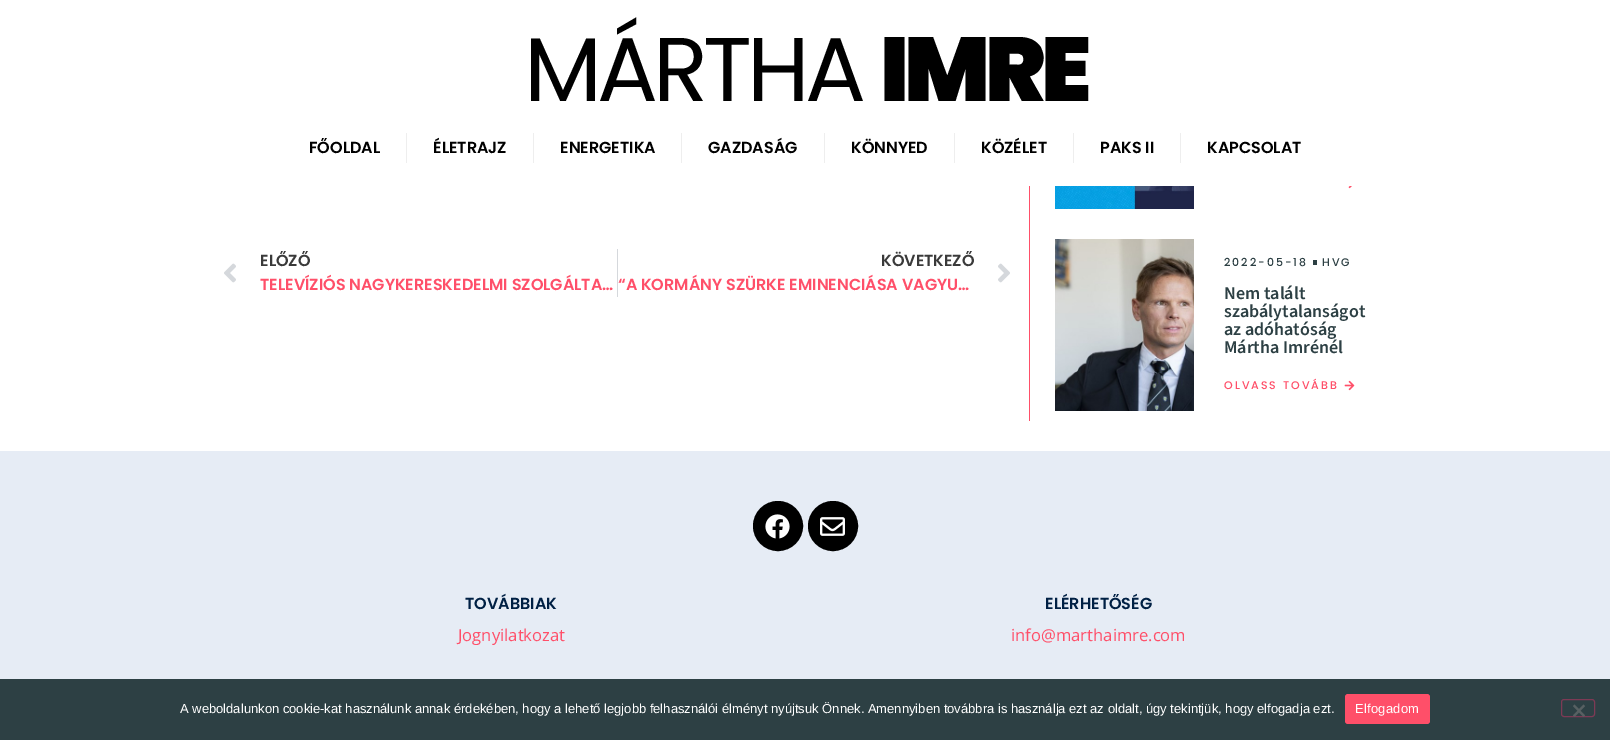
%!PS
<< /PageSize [1610 740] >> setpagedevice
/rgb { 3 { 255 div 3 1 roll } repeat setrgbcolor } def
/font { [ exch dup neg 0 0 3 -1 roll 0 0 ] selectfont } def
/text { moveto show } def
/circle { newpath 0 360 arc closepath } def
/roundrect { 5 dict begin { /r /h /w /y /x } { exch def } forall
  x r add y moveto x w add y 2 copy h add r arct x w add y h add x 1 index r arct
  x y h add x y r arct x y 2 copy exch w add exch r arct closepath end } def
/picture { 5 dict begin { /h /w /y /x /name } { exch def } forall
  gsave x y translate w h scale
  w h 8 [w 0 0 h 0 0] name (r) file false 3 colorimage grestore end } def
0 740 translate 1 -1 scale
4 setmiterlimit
255 255 255 rgb
0 0 1610 740 rectfill
238 238 238 rgb
406 133 1 30 rectfill
533 133 1 30 rectfill
681 133 1 30 rectfill
824 133 1 30 rectfill
954 133 1 30 rectfill
1073 133 1 30 rectfill
1180 133 1 30 rectfill
255 79 105 rgb
1029 186 1 235 rectfill
(img_01.rgb) 224 263 12 20 picture
213 216 220 rgb
617 249 1 48 rectfill
(img_02.rgb) 998 263 12 20 picture
(img_03.rgb) 1055 186 139 23 picture
(img_04.rgb) 1348 186 4 3 picture
(img_05.rgb) 1055 239 139 172 picture
45 64 68 rgb
1313 260 4 5 rectfill
(img_06.rgb) 1344 380 11 11 picture
230 236 245 rgb
0 451 1610 228 rectfill
0 0 0 rgb
778 526 23.5 circle gsave fill grestore
3 setlinewidth
stroke
(img_07.rgb) 765 514 25 25 picture
833 526 23.5 circle gsave fill grestore
stroke
(img_08.rgb) 820 517 25 19 picture
45 64 68 rgb
0 679 1610 61 rectfill
255 79 105 rgb
1345 694 85 30 3 roundrect fill
125 58 85 rgb
1 setlinewidth
1561.5 699.5 33 17 2.5 roundrect stroke
87 96 98 rgb
1583.5 704.5 moveto 1.5 1.5 rlineto -10.5 11 rlineto -1.5 -1.5 rlineto closepath fill
1573 706 moveto 1.5 -1.5 rlineto 10.5 11 rlineto -1.5 1.5 rlineto closepath fill
/Poppins-Regular 90.5 font
0 0 0 rgb
524 101 moveto -5 0 (MÁRTHA) ashow
/Poppins-Black 90.5 font
880 101 moveto -5 0 (IMRE) ashow
/Poppins-SemiBold 16 font
(FŐOLDAL) 309 153 text
(ÉLETRAJZ) 433 153 text
(ENERGETIKA) 560 153 text
(GAZDASÁG) 708 153 text
(KÖNNYED) 851 153 text
(KÖZÉLET) 981 153 text
(PAKS II) 1100 153 text
(KAPCSOLAT) 1207 153 text
58 58 58 rgb
(ELŐZŐ) 260 266 text
255 79 105 rgb
(TELEVÍZIÓS NAGYKERESKEDELMI SZOLGÁLTA…) 260 290 text
58 58 58 rgb
(KÖVETKEZŐ) 881 266 text
255 79 105 rgb
(“A KORMÁNY SZÜRKE EMINENCIÁSA VAGYU…) 618 290 text
/Poppins-Medium 11 font
45 64 68 rgb
1224 266 moveto 2 0 (2022-05-18) ashow
1322 266 moveto 2 0 (HVG) ashow
/SourceSans3-SemiBold 18 font
(Nem talált) 1224 299 text
(szabálytalanságot) 1224 317 text
(az adóhatóság) 1224 335 text
(Mártha Imrénél) 1224 353 text
/Poppins-Medium 11 font
255 79 105 rgb
1224 389 moveto 2 0 (OLVASS TOVÁBB) ashow
/Poppins-SemiBold 16 font
0 32 68 rgb
(TOVÁBBIAK) 465 609 text
/OpenSans-Regular 16.6 font
255 79 105 rgb
(Jognyilatkozat) 458 641 text
/Poppins-SemiBold 16 font
0 32 68 rgb
(ELÉRHETŐSÉG) 1045 609 text
/OpenSans-Regular 16.6 font
255 79 105 rgb
(info@marthaimre.com) 1011 641 text
/LiberationSans-Regular 13 font
255 255 255 rgb
(A weboldalunkon cookie-kat használunk annak érdekében, hogy a lehető legjobb felhasználói élményt nyújtsuk Önnek. Amennyiben továbbra is használja ezt az oldalt, úgy tekintjük, hogy elfogadja ezt.) 180 713 text
1355 713 moveto 0.25 0 (Elfogadom) ashow
showpage
